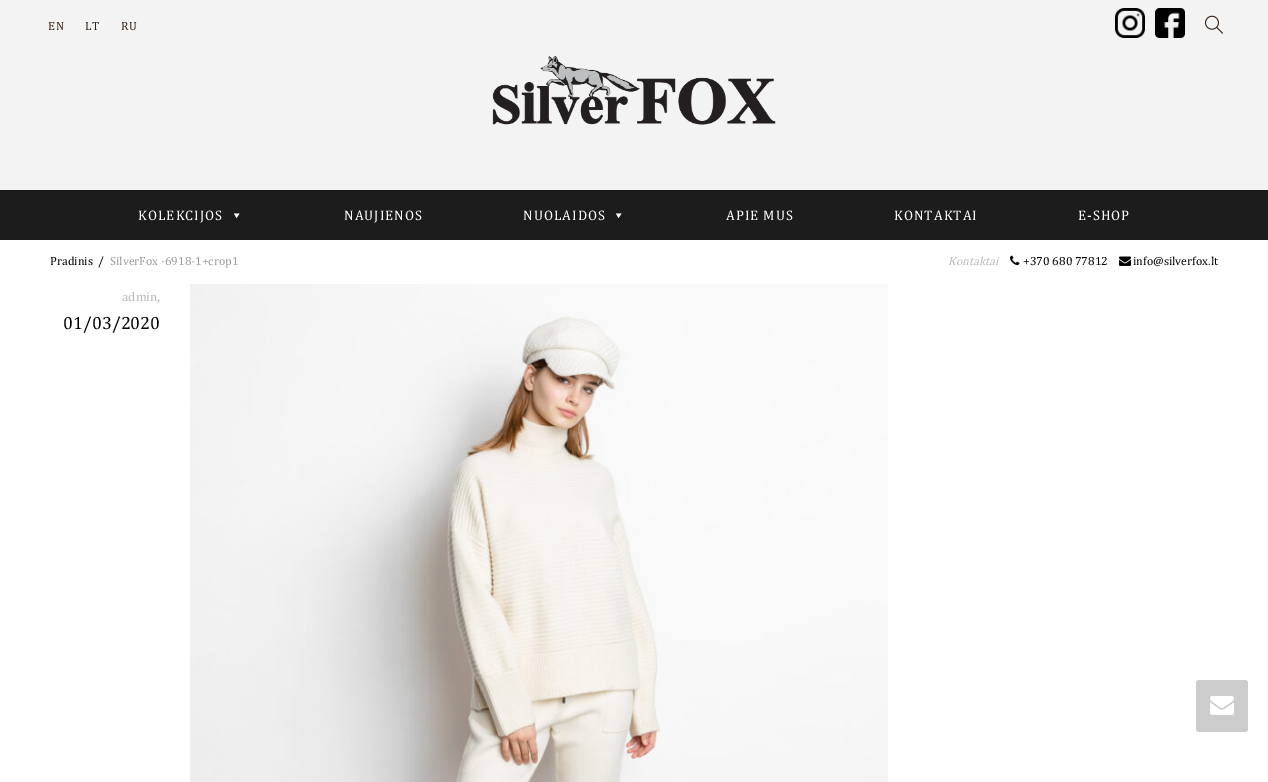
%!PS
<< /PageSize [1268 782] >> setpagedevice
/rgb { 3 { 255 div 3 1 roll } repeat setrgbcolor } def
/font { [ exch dup neg 0 0 3 -1 roll 0 0 ] selectfont } def
/text { moveto show } def
/roundrect { 5 dict begin { /r /h /w /y /x } { exch def } forall
  x r add y moveto x w add y 2 copy h add r arct x w add y h add x 1 index r arct
  x y h add x y r arct x y 2 copy exch w add exch r arct closepath end } def
/picture { 5 dict begin { /h /w /y /x /name } { exch def } forall
  gsave x y translate w h scale
  w h 8 [w 0 0 h 0 0] name (r) file false 3 colorimage grestore end } def
0 782 translate 1 -1 scale
4 setmiterlimit
243 243 243 rgb
0 0 1268 782 rectfill
(img_01.rgb) 1115 8 30 30 picture
(img_02.rgb) 1155 8 30 30 picture
(img_03.rgb) 1204 15 19 19 picture
(img_04.rgb) 492 55 284 70 picture
28 28 28 rgb
0 190 1268 50 rectfill
255 255 255 rgb
239.5 213.5 moveto -3 4.5 rlineto -2.5 -4.5 rlineto closepath fill
621.5 213.5 moveto -3 4.5 rlineto -2.5 -4.5 rlineto closepath fill
0 240 1268 542 rectfill
(img_05.rgb) 1010 255 10 11 picture
(img_06.rgb) 1119 256 12 10 picture
(img_07.rgb) 190 284 698 498 picture
204 204 204 rgb
1196 680 52 52 3 roundrect fill
(img_08.rgb) 1210 696 24 19 picture
/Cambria-Regular 12 font
49 33 22 rgb
48 30 moveto 1 0 (EN) ashow
85 30 moveto 1 0 (LT) ashow
121 30 moveto 1 0 (RU) ashow
/Cambria-Regular 14 font
255 255 255 rgb
138 220 moveto 1 0 (KOLEKCIJOS) ashow
344 220 moveto 1 0 (NAUJIENOS) ashow
523 220 moveto 1 0 (NUOLAIDOS) ashow
726 220 moveto 1 0 (APIE MUS) ashow
894 220 moveto 1 0 (KONTAKTAI) ashow
1078 220 moveto 1 0 (E-SHOP) ashow
/Cambria-Regular 12 font
0 0 0 rgb
(Pradinis) 50 265 text
(/) 98 265 text
153 153 153 rgb
(SilverFox -6918-1+crop1) 110 265 text
/Cambria-Italic 12 font
187 187 187 rgb
(Kontaktai) 948 265 text
/Cambria-Regular 12 font
0 0 0 rgb
(+370 680 77812) 1023 265 text
(info@silverfox.lt) 1133 265 text
/Cambria-Regular 13 font
187 187 187 rgb
(admin) 122 301 text
/Cambria-Regular 15 font
(,) 157 301 text
/Cambria-Regular 18 font
0 0 0 rgb
(01/03/2020) 63 329 text
showpage
